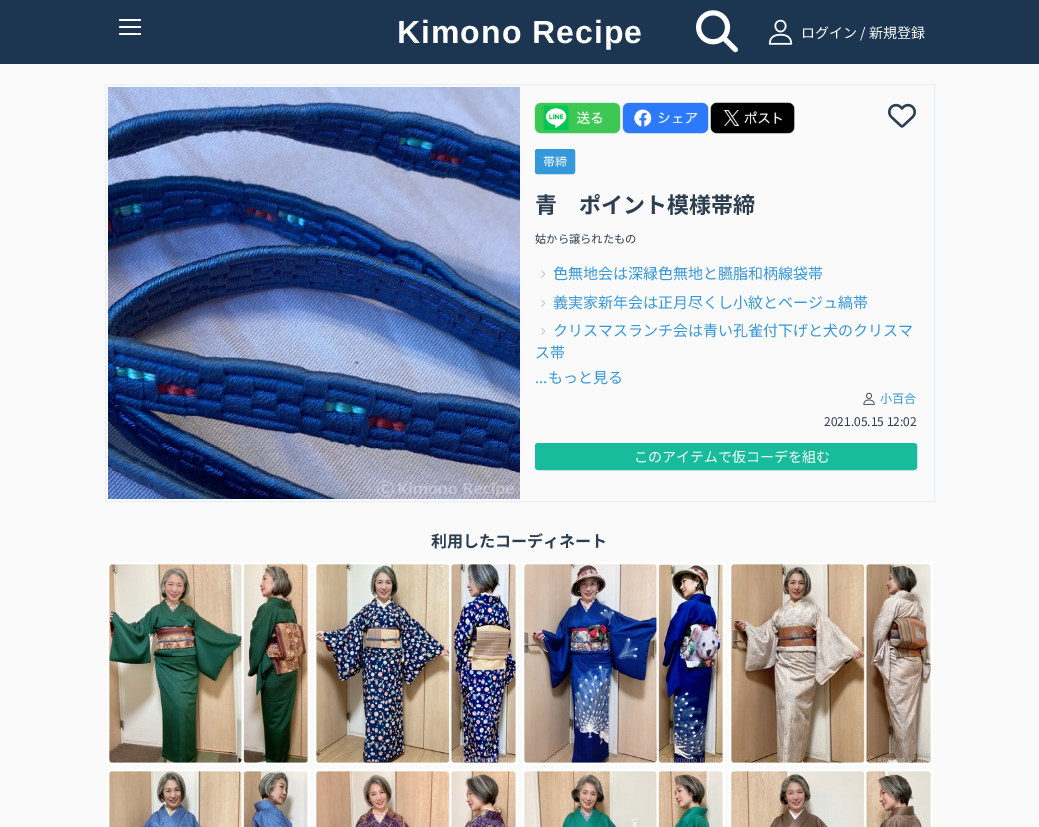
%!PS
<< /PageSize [1039 827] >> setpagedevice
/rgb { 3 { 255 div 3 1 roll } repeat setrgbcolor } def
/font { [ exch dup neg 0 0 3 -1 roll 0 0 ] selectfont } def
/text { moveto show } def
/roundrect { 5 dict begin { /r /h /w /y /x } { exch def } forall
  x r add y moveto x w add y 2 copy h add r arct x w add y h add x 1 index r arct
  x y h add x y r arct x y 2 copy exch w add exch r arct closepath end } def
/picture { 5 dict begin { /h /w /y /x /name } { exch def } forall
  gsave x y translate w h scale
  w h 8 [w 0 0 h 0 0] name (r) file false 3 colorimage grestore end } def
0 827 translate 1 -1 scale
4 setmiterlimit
250 250 250 rgb
0 0 1039 827 rectfill
28 53 80 rgb
0 0 1039 64 rectfill
255 255 255 rgb
119 19 22 2 1 roundrect fill
119 26 22 2 1 roundrect fill
119 33 22 2 1 roundrect fill
(img_01.rgb) 696 10 42 43 picture
(img_02.rgb) 768 19 25 26 picture
234 239 244 rgb
105.5 84.5 829 417 rectstroke
(img_03.rgb) 108 87 412 412 picture
(img_04.rgb) 534 102 87 32 picture
(img_05.rgb) 622 102 87 32 picture
(img_06.rgb) 710 102 85 32 picture
(img_07.rgb) 888 103 28 25 picture
52 152 219 rgb
535.5 149.5 39 24 2 roundrect gsave fill grestore
stroke
(img_08.rgb) 541 270 5 8 picture
(img_08.rgb) 541 299 5 8 picture
(img_08.rgb) 541 327 5 8 picture
(img_09.rgb) 863 392 12 13 picture
24 188 156 rgb
536 444 380 25 2 roundrect gsave fill grestore
2 setlinewidth
stroke
(img_10.rgb) 107 562 203 203 picture
(img_11.rgb) 314 562 204 203 picture
(img_12.rgb) 522 562 203 203 picture
(img_13.rgb) 729 562 204 203 picture
(img_14.rgb) 107 769 203 58 picture
(img_15.rgb) 314 769 204 58 picture
(img_16.rgb) 522 769 203 58 picture
(img_17.rgb) 729 769 204 58 picture
/LiberationSans-Bold 32 font
255 255 255 rgb
397 43 moveto 1 0 (Kimono Recipe) ashow
/NotoSansJP-Regular 14 font
(ログイン / 新規登録) 801 38 text
/NotoSansJP-Regular 12 font
(帯締) 543 166 text
/NotoSansJP-Bold 22 font
44 62 80 rgb
(青　ポイント模様帯締) 535 213 text
/NotoSansJP-Regular 11.25 font
(姑から譲られたもの) 535 243 text
/NotoSansJP-Regular 15 font
52 152 219 rgb
(色無地会は深緑色無地と臙脂和柄線袋帯) 553 279 text
(義実家新年会は正月尽くし小紋とベージュ縞帯) 553 308 text
(クリスマスランチ会は青い孔雀付下げと犬のクリスマ) 553 336 text
(ス帯) 535 358 text
(...もっと見る) 535 383 text
/NotoSansJP-Regular 12 font
(小百合) 880 403 text
44 62 80 rgb
(2021.05.15 12:02) 824 426 text
/NotoSansJP-Regular 14 font
255 255 255 rgb
(このアイテムで仮コーデを組む) 634 462 text
/NotoSansJP-Bold 16 font
44 62 80 rgb
(利用したコーディネート) 431 547 text
showpage
